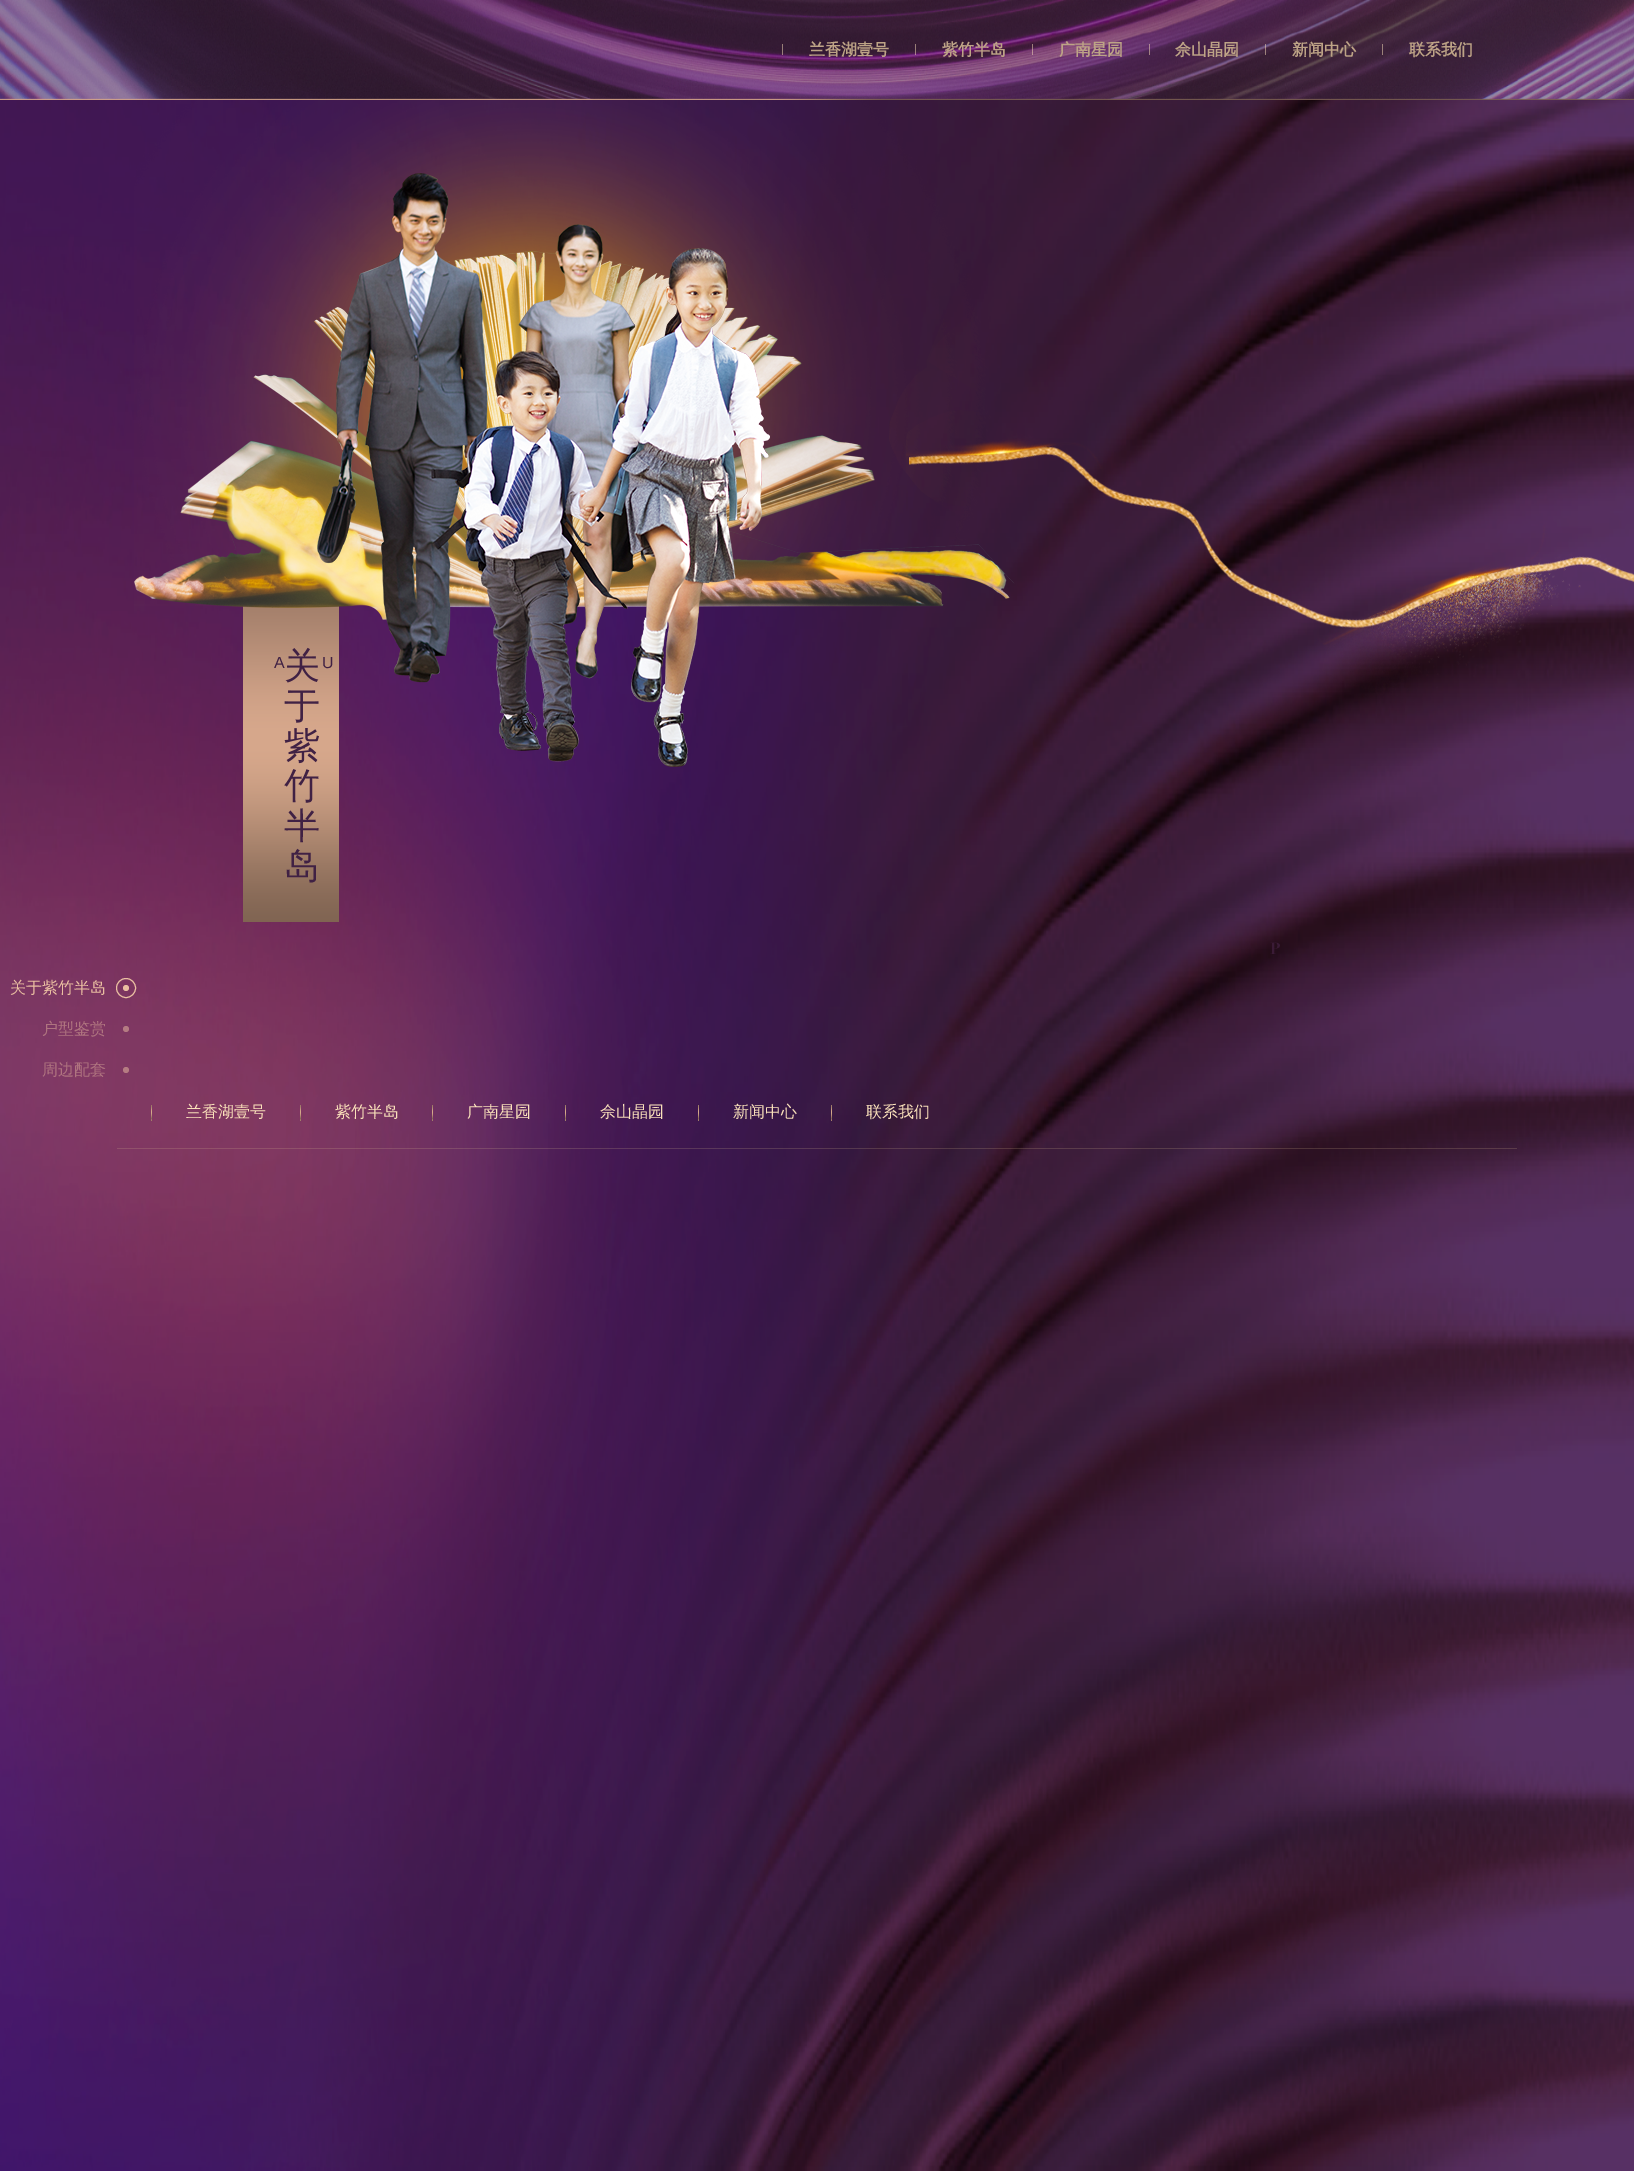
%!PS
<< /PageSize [1634 2171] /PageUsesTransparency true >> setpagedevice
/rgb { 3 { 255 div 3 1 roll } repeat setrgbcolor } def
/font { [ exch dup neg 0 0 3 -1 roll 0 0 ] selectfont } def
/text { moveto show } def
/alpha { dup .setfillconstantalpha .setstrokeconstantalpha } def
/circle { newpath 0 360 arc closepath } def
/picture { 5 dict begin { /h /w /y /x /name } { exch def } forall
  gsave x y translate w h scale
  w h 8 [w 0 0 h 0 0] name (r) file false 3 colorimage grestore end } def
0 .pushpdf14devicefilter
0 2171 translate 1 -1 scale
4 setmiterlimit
255 255 255 rgb
0 0 1634 2171 rectfill
(img_03.rgb) 0 99 1634 2072 picture
(img_01.rgb) 0 0 1634 100 picture
0.5 alpha
250 225 186 rgb
782 44 1 11 rectfill
915 44 1 11 rectfill
1032 44 1 11 rectfill
1149 44 1 11 rectfill
1265 44 1 11 rectfill
1382 44 1 11 rectfill
1 alpha
(img_02.rgb) 0 98 1634 2 picture
(img_05.rgb) 243 606 96 316 picture
234 191 161 rgb
126 988 9.5 circle stroke
126 988 3 circle fill
180 123 130 rgb
126 1029 3 circle fill
181 124 130 rgb
126 1070 3 circle fill
0.2 alpha
216 187 143 rgb
117 1148 1400 1 rectfill
1 alpha
(img_06.rgb) 151 1105 1 16 picture
(img_06.rgb) 300 1105 1 16 picture
(img_06.rgb) 432 1105 1 16 picture
(img_06.rgb) 565 1105 1 16 picture
(img_06.rgb) 698 1105 1 16 picture
(img_06.rgb) 831 1105 1 16 picture
/WenQuanYiZenHei-Bold 16 font
189 163 134 rgb
(兰香湖壹号) 809 55 text
(紫竹半岛) 942 55 text
(广南星园) 1059 55 text
(佘山晶园) 1175 55 text
(新闻中心) 1292 55 text
(联系我们) 1409 55 text
/WenQuanYiZenHei-Medium 36 font
64 33 68 rgb
(关) 284 678 text
(于) 284 718 text
(紫) 284 758 text
(img_04.rgb) 134 100 1500 667 picture
(竹) 284 798 text
(半) 284 838 text
(岛) 284 878 text
/LiberationSans-Regular 16 font
274 668 moveto 5 0 (A) ashow
322 668 moveto 5 0 (U) ashow
/Didot-Bold 16 font
58 27 54 rgb
1270 954 moveto 14 0 (P) ashow
/WenQuanYiZenHei-Medium 16 font
234 191 161 rgb
(关于紫竹半岛) 10 993 text
175 116 127 rgb
(户型鉴赏) 42 1034 text
(周边配套) 42 1075 text
250 225 186 rgb
(兰香湖壹号) 186 1117 text
(紫竹半岛) 335 1117 text
(广南星园) 467 1117 text
(佘山晶园) 600 1117 text
(新闻中心) 733 1117 text
(联系我们) 866 1117 text
.poppdf14devicefilter showpage
